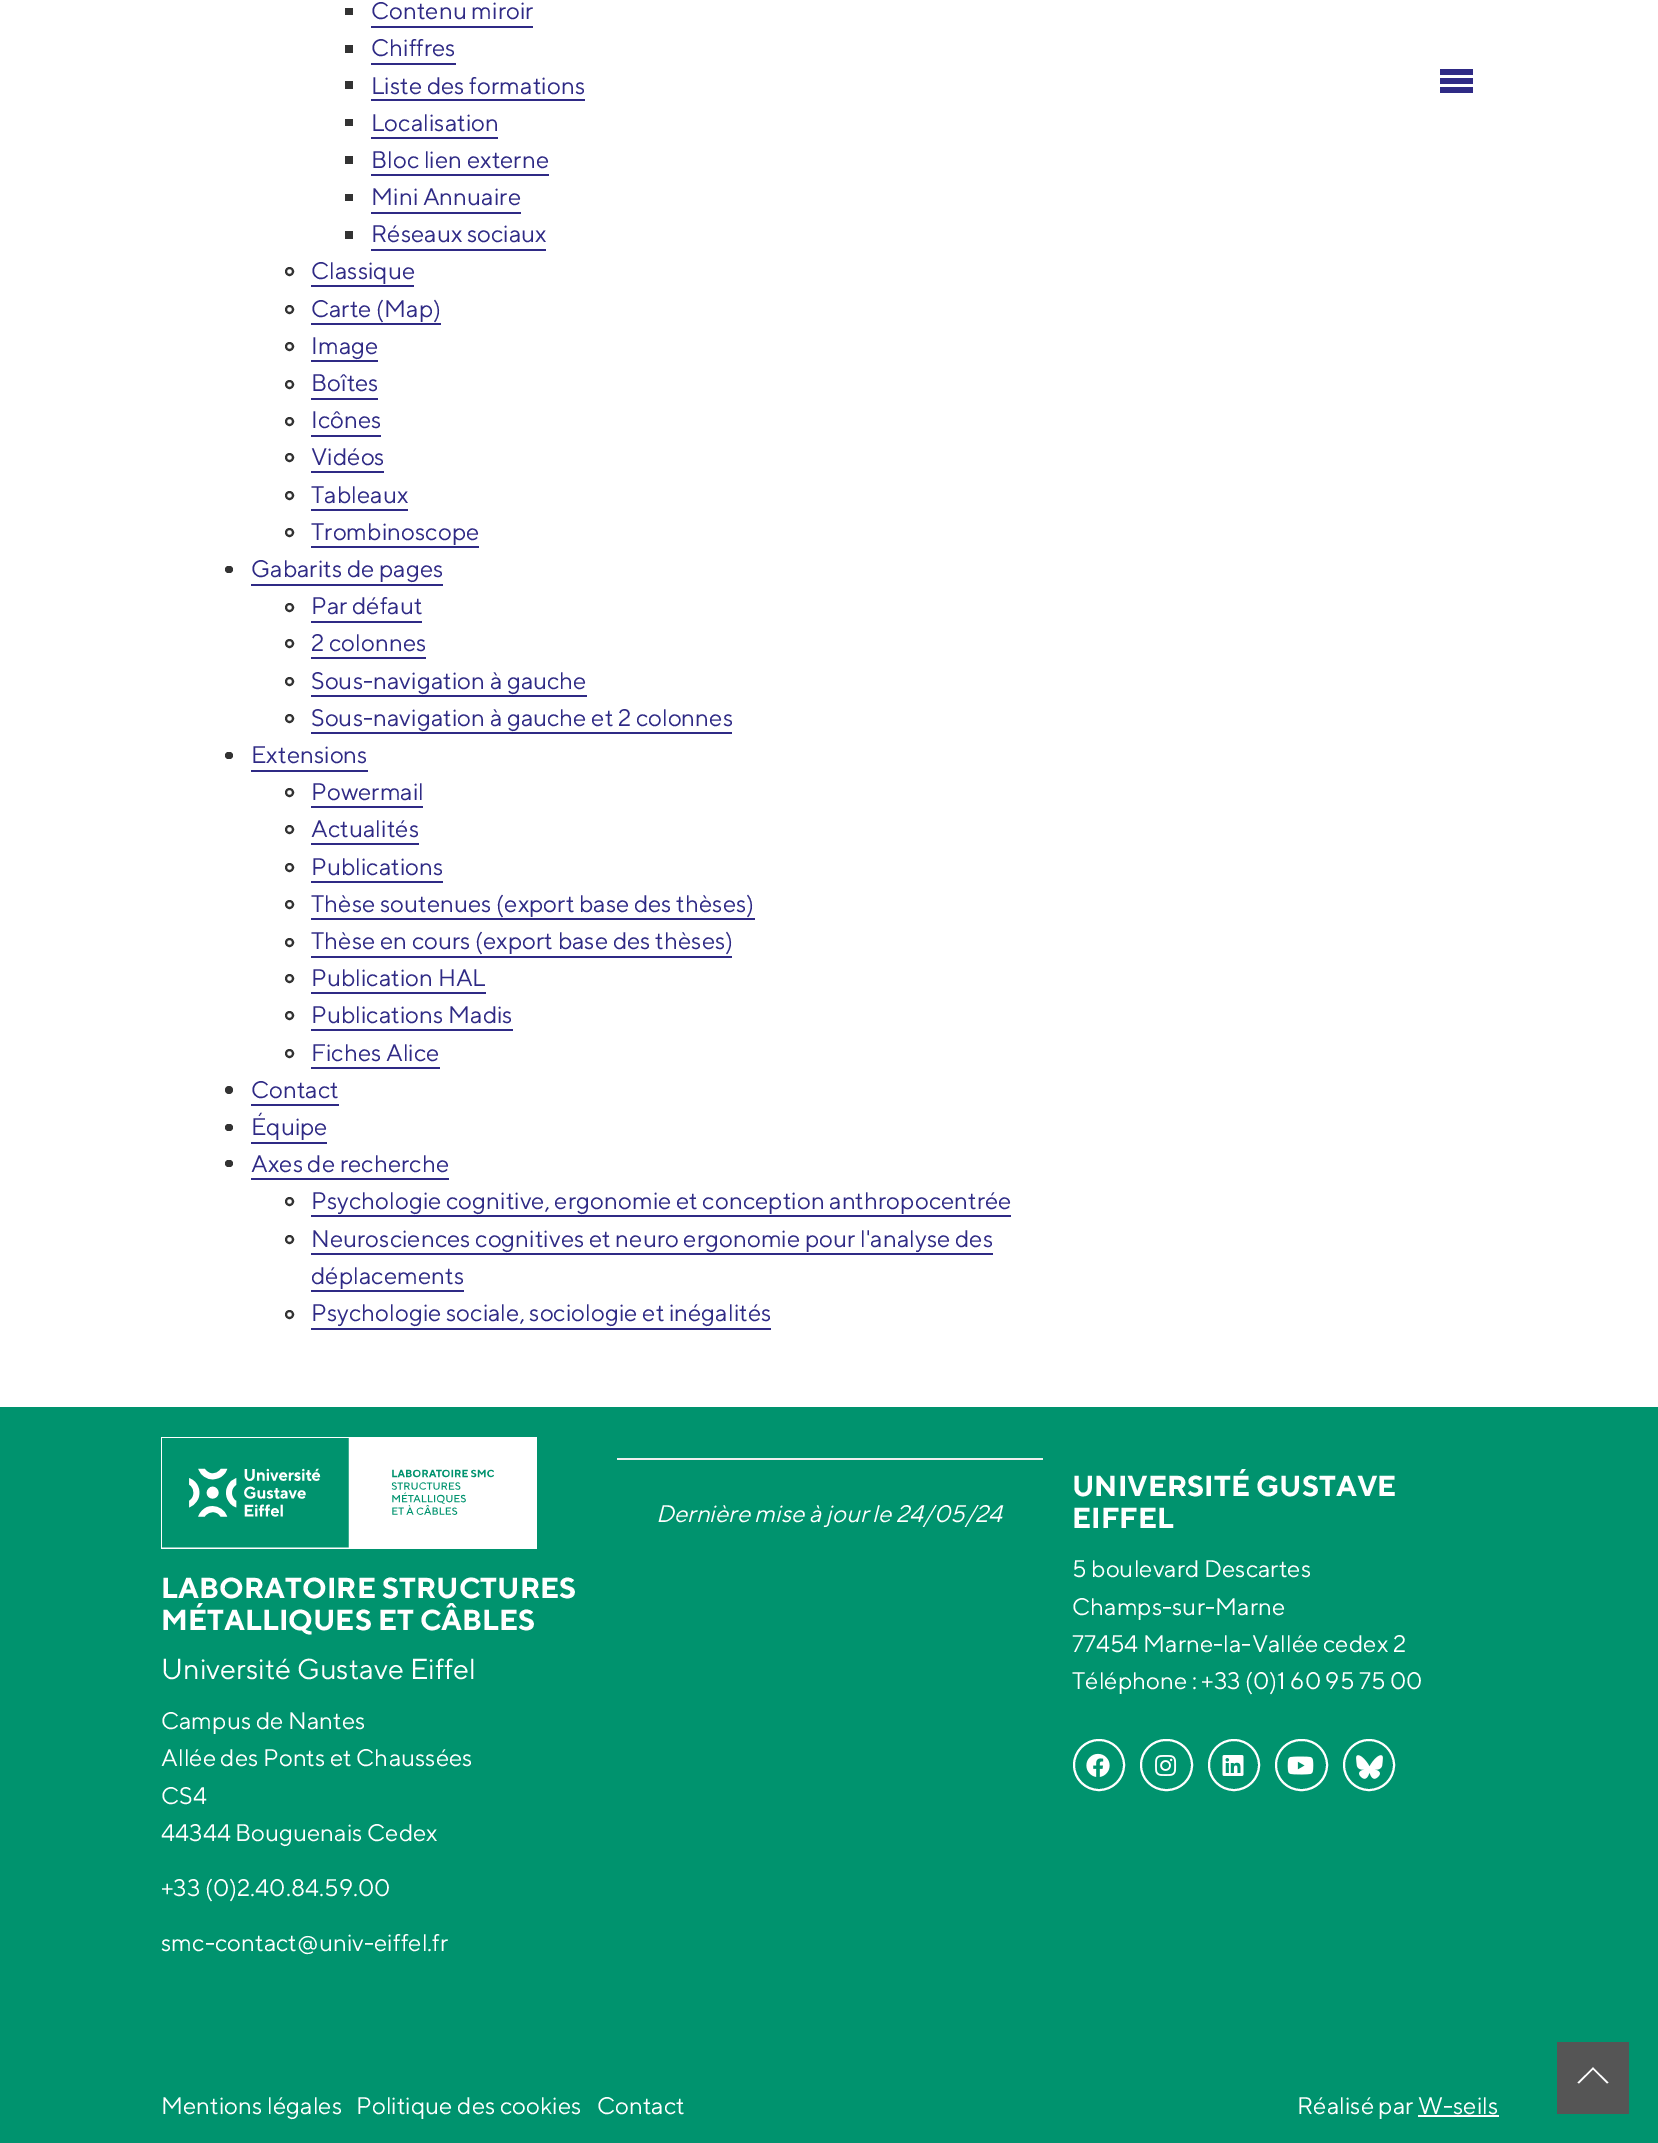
%!PS
<< /PageSize [1658 2143] >> setpagedevice
/rgb { 3 { 255 div 3 1 roll } repeat setrgbcolor } def
/font { [ exch dup neg 0 0 3 -1 roll 0 0 ] selectfont } def
/text { moveto show } def
/circle { newpath 0 360 arc closepath } def
/roundrect { 5 dict begin { /r /h /w /y /x } { exch def } forall
  x r add y moveto x w add y 2 copy h add r arct x w add y h add x 1 index r arct
  x y h add x y r arct x y 2 copy exch w add exch r arct closepath end } def
/picture { 5 dict begin { /h /w /y /x /name } { exch def } forall
  gsave x y translate w h scale
  w h 8 [w 0 0 h 0 0] name (r) file false 3 colorimage grestore end } def
0 2143 translate 1 -1 scale
4 setmiterlimit
255 255 255 rgb
0 0 1658 2143 rectfill
51 51 51 rgb
345 8 8 7 rectfill
47 42 133 rgb
371 26 162 2 rectfill
51 51 51 rgb
345 45 8 8 rectfill
47 42 133 rgb
371 63 85 2 rectfill
51 51 51 rgb
345 81 8 8 rectfill
47 42 133 rgb
371 99 214 2 rectfill
51 51 51 rgb
345 119 8 7 rectfill
47 42 133 rgb
371 137 127 2 rectfill
51 51 51 rgb
345 156 8 8 rectfill
47 42 133 rgb
371 174 178 2 rectfill
51 51 51 rgb
345 194 8 7 rectfill
47 42 133 rgb
371 212 150 2 rectfill
51 51 51 rgb
345 231 8 8 rectfill
47 42 133 rgb
371 249 175 2 rectfill
51 51 51 rgb
2 setlinewidth
289.5 271.5 3.5 circle stroke
47 42 133 rgb
311 285 103 2 rectfill
51 51 51 rgb
289.5 309.5 3.5 circle stroke
47 42 133 rgb
311 323 130 2 rectfill
51 51 51 rgb
289.5 346.5 3.5 circle stroke
47 42 133 rgb
311 360 67 2 rectfill
51 51 51 rgb
289.5 384.5 3.5 circle stroke
47 42 133 rgb
311 398 67 2 rectfill
51 51 51 rgb
289.5 421.5 3.5 circle stroke
47 42 133 rgb
311 435 70 2 rectfill
51 51 51 rgb
289.5 457.5 3.5 circle stroke
47 42 133 rgb
311 471 73 2 rectfill
51 51 51 rgb
289.5 495.5 3.5 circle stroke
47 42 133 rgb
311 509 97 2 rectfill
51 51 51 rgb
289.5 532.5 3.5 circle stroke
47 42 133 rgb
311 546 168 2 rectfill
51 51 51 rgb
225 566 8 7 3.5 roundrect fill
47 42 133 rgb
251 584 192 2 rectfill
51 51 51 rgb
289.5 607.5 3.5 circle stroke
47 42 133 rgb
311 621 111 2 rectfill
51 51 51 rgb
289.5 643.5 3.5 circle stroke
47 42 133 rgb
311 657 115 2 rectfill
51 51 51 rgb
289.5 681.5 3.5 circle stroke
47 42 133 rgb
311 695 276 2 rectfill
51 51 51 rgb
289.5 718.5 3.5 circle stroke
47 42 133 rgb
311 732 421 2 rectfill
51 51 51 rgb
225 752 8 7 3.5 roundrect fill
47 42 133 rgb
251 770 117 2 rectfill
51 51 51 rgb
289.5 792.5 3.5 circle stroke
47 42 133 rgb
311 806 112 2 rectfill
51 51 51 rgb
289.5 829.5 3.5 circle stroke
47 42 133 rgb
311 843 108 2 rectfill
51 51 51 rgb
289.5 867.5 3.5 circle stroke
47 42 133 rgb
311 881 132 2 rectfill
51 51 51 rgb
289.5 904.5 3.5 circle stroke
47 42 133 rgb
311 918 444 2 rectfill
51 51 51 rgb
289.5 942.5 3.5 circle stroke
47 42 133 rgb
311 956 421 2 rectfill
51 51 51 rgb
289.5 978.5 3.5 circle stroke
47 42 133 rgb
311 992 175 2 rectfill
51 51 51 rgb
289.5 1015.5 3.5 circle stroke
47 42 133 rgb
311 1029 202 2 rectfill
51 51 51 rgb
289.5 1053.5 3.5 circle stroke
47 42 133 rgb
311 1067 129 2 rectfill
51 51 51 rgb
229 1090 4 circle fill
47 42 133 rgb
251 1104 88 2 rectfill
51 51 51 rgb
225 1124 8 7 3.5 roundrect fill
47 42 133 rgb
251 1142 76 2 rectfill
51 51 51 rgb
225 1160 8 7 3.5 roundrect fill
47 42 133 rgb
251 1178 198 2 rectfill
51 51 51 rgb
289.5 1201.5 3.5 circle stroke
47 42 133 rgb
311 1215 700 2 rectfill
51 51 51 rgb
289.5 1239.5 3.5 circle stroke
47 42 133 rgb
311 1253 682 2 rectfill
311 1290 153 2 rectfill
51 51 51 rgb
289.5 1314.5 3.5 circle stroke
47 42 133 rgb
311 1328 460 2 rectfill
1440 78 33 6 rectfill
1440 69 33 6 rectfill
1440 87 33 6 rectfill
0 147 110 rgb
0 1407 1658 736 rectfill
238 238 238 rgb
617 1458 426 2 rectfill
255 255 255 rgb
1099 1765 25 circle stroke
(img_01.rgb) 1086 1753 24 24 picture
1141 1740 51 50 25 roundrect stroke
(img_02.rgb) 1155 1755 22 21 picture
1234 1765 25 circle stroke
(img_03.rgb) 1222 1755 22 21 picture
1276 1740 51 50 25 roundrect stroke
(img_04.rgb) 1287 1756 27 19 picture
1369 1765 25 circle stroke
(img_05.rgb) 1356 1755 27 24 picture
(img_06.rgb) 161 1437 376 112 picture
1418 2115 81 2 rectfill
85 85 85 rgb
1557 2042 72 72 rectfill
255 255 255 rgb
1593 2067.5 moveto 15.5 15 rlineto -1.5 1 rlineto -15 -15 rlineto closepath fill
1593 2067.5 moveto 1 1 rlineto -15 15 rlineto -1.5 -1 rlineto closepath fill
/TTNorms-Regular 24 font
47 42 133 rgb
(Contenu miroir) 371 19 text
(Chiffres) 371 56 text
(Liste des formations) 371 94 text
(Localisation) 371 131 text
(Bloc lien externe) 371 168 text
(Mini Annuaire) 371 205 text
(Réseaux sociaux) 371 242 text
(Classique) 311 279 text
(Carte \(Map\)) 311 317 text
(Image) 311 354 text
(Boîtes) 311 391 text
(Icônes) 311 428 text
(Vidéos) 311 465 text
(Tableaux) 311 503 text
(Trombinoscope) 311 540 text
(Gabarits de pages) 251 577 text
(Par défaut) 311 614 text
(2 colonnes) 311 651 text
(Sous-navigation à gauche) 311 689 text
(Sous-navigation à gauche et 2 colonnes) 311 726 text
(Extensions) 251 763 text
(Powermail) 311 800 text
(Actualités) 311 837 text
(Publications) 311 875 text
(Thèse soutenues \(export base des thèses\)) 311 912 text
(Thèse en cours \(export base des thèses\)) 311 949 text
(Publication HAL) 311 986 text
(Publications Madis) 311 1023 text
(Fiches Alice) 311 1061 text
(Contact) 251 1098 text
(Équipe) 251 1135 text
(Axes de recherche) 251 1172 text
(Psychologie cognitive, ergonomie et conception anthropocentrée) 311 1209 text
(Neurosciences cognitives et neuro ergonomie pour l'analyse des) 311 1247 text
(déplacements) 311 1284 text
(Psychologie sociale, sociologie et inégalités) 311 1321 text
/TTNorms-Italic 24 font
255 255 255 rgb
(Dernière mise à jour le 24/05/24) 656 1522 text
/TTNorms-Bold 28.75 font
(UNIVERSITÉ GUSTAVE) 1072 1496 text
(EIFFEL) 1072 1528 text
/TTNorms-Regular 24 font
(5 boulevard Descartes) 1072 1577 text
(Champs-sur-Marne) 1072 1615 text
(77454 Marne-la-Vallée cedex 2) 1072 1652 text
(Téléphone : +33 \(0\)1 60 95 75 00) 1072 1689 text
/TTNorms-Bold 28.75 font
(LABORATOIRE STRUCTURES) 161 1598 text
(MÉTALLIQUES ET CÂBLES) 161 1630 text
/TTNorms-Regular 28.75 font
(Université Gustave Eiffel) 161 1679 text
/TTNorms-Regular 24 font
(Campus de Nantes) 161 1729 text
(Allée des Ponts et Chaussées) 161 1766 text
(CS4) 161 1804 text
(44344 Bouguenais Cedex) 161 1841 text
(+33 \(0\)2.40.84.59.00) 161 1896 text
(smc-contact@univ-eiffel.fr) 161 1951 text
(Mentions légales) 161 2114 text
(Politique des cookies) 356 2114 text
(Contact) 597 2114 text
(Réalisé par W-seils) 1297 2114 text
showpage
